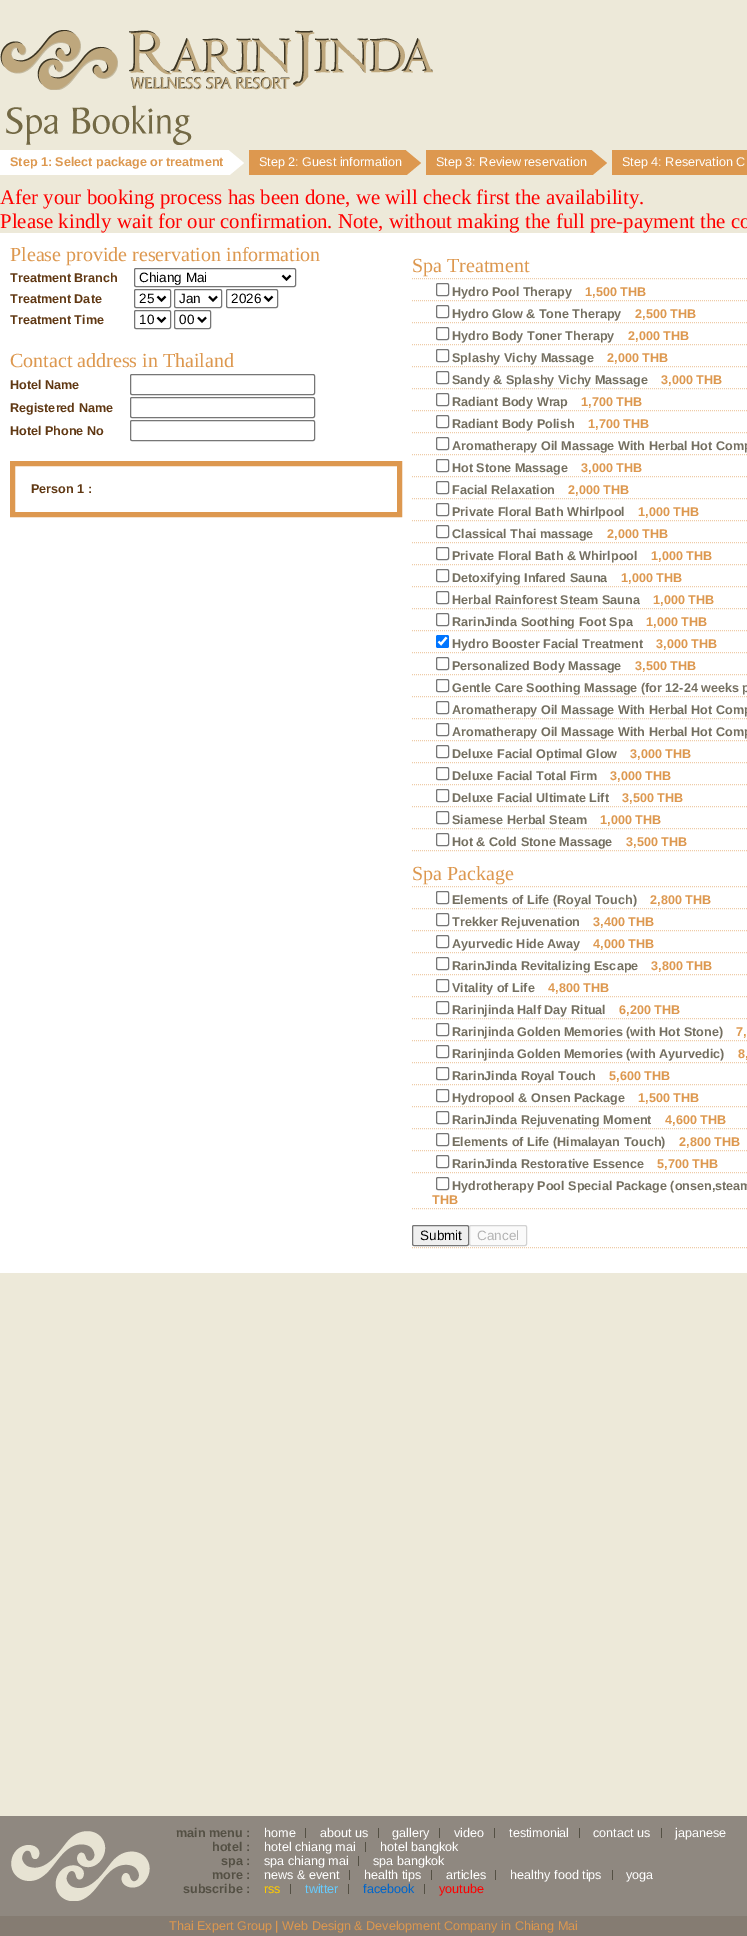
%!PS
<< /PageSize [747 1936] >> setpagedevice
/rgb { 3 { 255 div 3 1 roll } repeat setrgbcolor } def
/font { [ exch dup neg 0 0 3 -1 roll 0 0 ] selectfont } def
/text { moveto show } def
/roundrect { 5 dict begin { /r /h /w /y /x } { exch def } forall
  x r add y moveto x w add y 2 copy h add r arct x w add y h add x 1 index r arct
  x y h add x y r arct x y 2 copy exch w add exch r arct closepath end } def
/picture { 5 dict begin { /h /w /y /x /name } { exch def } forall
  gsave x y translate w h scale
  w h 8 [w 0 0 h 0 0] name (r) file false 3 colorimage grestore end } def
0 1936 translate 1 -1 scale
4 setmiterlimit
237 233 217 rgb
0 0 747 1936 rectfill
(img_01.rgb) 0 30 433 60 picture
(img_02.rgb) 6 105 186 40 picture
255 255 255 rgb
0 150 229 25 rectfill
(img_03.rgb) 229 150 15 25 picture
221 152 79 rgb
249 150 157 25 rectfill
(img_04.rgb) 406 150 15 25 picture
426 150 166 25 rectfill
(img_04.rgb) 592 150 15 25 picture
612 150 135 25 rectfill
255 255 255 rgb
0 233 747 1040 rectfill
118 118 118 rgb
134.5 268.5 161 18 1.5 roundrect stroke
0 0 0 rgb
2 setlinewidth
282.5 275.5 moveto 4 4 rlineto 4 -4 rlineto stroke
118 118 118 rgb
1 setlinewidth
134.5 289.5 36 18 1.5 roundrect stroke
0 0 0 rgb
2 setlinewidth
157.5 296.5 moveto 4 4 rlineto 4 -4 rlineto stroke
118 118 118 rgb
1 setlinewidth
174.5 289.5 47 18 1.5 roundrect stroke
0 0 0 rgb
2 setlinewidth
209 296.5 moveto 4 4 rlineto 4 -4 rlineto stroke
118 118 118 rgb
1 setlinewidth
226.5 289.5 51 18 1.5 roundrect stroke
0 0 0 rgb
2 setlinewidth
264.5 296.5 moveto 4 4 rlineto 4 -4 rlineto stroke
118 118 118 rgb
1 setlinewidth
134.5 310.5 36 18 1.5 roundrect stroke
0 0 0 rgb
2 setlinewidth
157.5 317.5 moveto 4 4 rlineto 4 -4 rlineto stroke
118 118 118 rgb
1 setlinewidth
174.5 310.5 36 18 1.5 roundrect stroke
0 0 0 rgb
2 setlinewidth
198 317.5 moveto 4 4 rlineto 4 -4 rlineto stroke
118 118 118 rgb
1 setlinewidth
130.5 374.5 184 20 1.5 roundrect stroke
130.5 397.5 184 20 1.5 roundrect stroke
130.5 420.5 184 20 1.5 roundrect stroke
221 152 79 rgb
5 setlinewidth
12.5 463.5 387 51 rectstroke
238 203 167 rgb
1 setlinewidth
[1 1] 0 setdash
412 278.5 moveto 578 0 rlineto stroke
412 300.5 moveto 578 0 rlineto stroke
118 118 118 rgb
[] 0 setdash
436.5 283.5 12 12 1.5 roundrect stroke
238 203 167 rgb
[1 1] 0 setdash
412 322.5 moveto 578 0 rlineto stroke
118 118 118 rgb
[] 0 setdash
436.5 305.5 12 12 1.5 roundrect stroke
238 203 167 rgb
[1 1] 0 setdash
412 344.5 moveto 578 0 rlineto stroke
118 118 118 rgb
[] 0 setdash
436.5 327.5 12 12 1.5 roundrect stroke
238 203 167 rgb
[1 1] 0 setdash
412 366.5 moveto 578 0 rlineto stroke
118 118 118 rgb
[] 0 setdash
436.5 349.5 12 12 1.5 roundrect stroke
238 203 167 rgb
[1 1] 0 setdash
412 388.5 moveto 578 0 rlineto stroke
118 118 118 rgb
[] 0 setdash
436.5 371.5 12 12 1.5 roundrect stroke
238 203 167 rgb
[1 1] 0 setdash
412 410.5 moveto 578 0 rlineto stroke
118 118 118 rgb
[] 0 setdash
436.5 393.5 12 12 1.5 roundrect stroke
238 203 167 rgb
[1 1] 0 setdash
412 432.5 moveto 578 0 rlineto stroke
118 118 118 rgb
[] 0 setdash
436.5 415.5 12 12 1.5 roundrect stroke
238 203 167 rgb
[1 1] 0 setdash
412 454.5 moveto 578 0 rlineto stroke
118 118 118 rgb
[] 0 setdash
436.5 437.5 12 12 1.5 roundrect stroke
238 203 167 rgb
[1 1] 0 setdash
412 476.5 moveto 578 0 rlineto stroke
118 118 118 rgb
[] 0 setdash
436.5 459.5 12 12 1.5 roundrect stroke
238 203 167 rgb
[1 1] 0 setdash
412 498.5 moveto 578 0 rlineto stroke
118 118 118 rgb
[] 0 setdash
436.5 481.5 12 12 1.5 roundrect stroke
238 203 167 rgb
[1 1] 0 setdash
412 520.5 moveto 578 0 rlineto stroke
118 118 118 rgb
[] 0 setdash
436.5 503.5 12 12 1.5 roundrect stroke
238 203 167 rgb
[1 1] 0 setdash
412 542.5 moveto 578 0 rlineto stroke
118 118 118 rgb
[] 0 setdash
436.5 525.5 12 12 1.5 roundrect stroke
238 203 167 rgb
[1 1] 0 setdash
412 564.5 moveto 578 0 rlineto stroke
118 118 118 rgb
[] 0 setdash
436.5 547.5 12 12 1.5 roundrect stroke
238 203 167 rgb
[1 1] 0 setdash
412 586.5 moveto 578 0 rlineto stroke
118 118 118 rgb
[] 0 setdash
436.5 569.5 12 12 1.5 roundrect stroke
238 203 167 rgb
[1 1] 0 setdash
412 608.5 moveto 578 0 rlineto stroke
118 118 118 rgb
[] 0 setdash
436.5 591.5 12 12 1.5 roundrect stroke
238 203 167 rgb
[1 1] 0 setdash
412 630.5 moveto 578 0 rlineto stroke
118 118 118 rgb
[] 0 setdash
436.5 613.5 12 12 1.5 roundrect stroke
238 203 167 rgb
[1 1] 0 setdash
412 652.5 moveto 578 0 rlineto stroke
0 117 255 rgb
436 635 13 13 2 roundrect fill
255 255 255 rgb
2.1 setlinewidth
[] 0 setdash
438.5 641.5 moveto 2.5 2.5 rlineto 5.5 -6.5 rlineto stroke
238 203 167 rgb
1 setlinewidth
[1 1] 0 setdash
412 674.5 moveto 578 0 rlineto stroke
118 118 118 rgb
[] 0 setdash
436.5 657.5 12 12 1.5 roundrect stroke
238 203 167 rgb
[1 1] 0 setdash
412 696.5 moveto 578 0 rlineto stroke
118 118 118 rgb
[] 0 setdash
436.5 679.5 12 12 1.5 roundrect stroke
238 203 167 rgb
[1 1] 0 setdash
412 718.5 moveto 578 0 rlineto stroke
118 118 118 rgb
[] 0 setdash
436.5 701.5 12 12 1.5 roundrect stroke
238 203 167 rgb
[1 1] 0 setdash
412 740.5 moveto 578 0 rlineto stroke
118 118 118 rgb
[] 0 setdash
436.5 723.5 12 12 1.5 roundrect stroke
238 203 167 rgb
[1 1] 0 setdash
412 762.5 moveto 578 0 rlineto stroke
118 118 118 rgb
[] 0 setdash
436.5 745.5 12 12 1.5 roundrect stroke
238 203 167 rgb
[1 1] 0 setdash
412 784.5 moveto 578 0 rlineto stroke
118 118 118 rgb
[] 0 setdash
436.5 767.5 12 12 1.5 roundrect stroke
238 203 167 rgb
[1 1] 0 setdash
412 806.5 moveto 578 0 rlineto stroke
118 118 118 rgb
[] 0 setdash
436.5 789.5 12 12 1.5 roundrect stroke
238 203 167 rgb
[1 1] 0 setdash
412 828.5 moveto 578 0 rlineto stroke
118 118 118 rgb
[] 0 setdash
436.5 811.5 12 12 1.5 roundrect stroke
238 203 167 rgb
[1 1] 0 setdash
412 850.5 moveto 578 0 rlineto stroke
118 118 118 rgb
[] 0 setdash
436.5 833.5 12 12 1.5 roundrect stroke
238 203 167 rgb
[1 1] 0 setdash
412 886.5 moveto 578 0 rlineto stroke
412 908.5 moveto 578 0 rlineto stroke
118 118 118 rgb
[] 0 setdash
436.5 891.5 12 12 1.5 roundrect stroke
238 203 167 rgb
[1 1] 0 setdash
412 930.5 moveto 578 0 rlineto stroke
118 118 118 rgb
[] 0 setdash
436.5 913.5 12 12 1.5 roundrect stroke
238 203 167 rgb
[1 1] 0 setdash
412 952.5 moveto 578 0 rlineto stroke
118 118 118 rgb
[] 0 setdash
436.5 935.5 12 12 1.5 roundrect stroke
238 203 167 rgb
[1 1] 0 setdash
412 974.5 moveto 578 0 rlineto stroke
118 118 118 rgb
[] 0 setdash
436.5 957.5 12 12 1.5 roundrect stroke
238 203 167 rgb
[1 1] 0 setdash
412 996.5 moveto 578 0 rlineto stroke
118 118 118 rgb
[] 0 setdash
436.5 979.5 12 12 1.5 roundrect stroke
238 203 167 rgb
[1 1] 0 setdash
412 1018.5 moveto 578 0 rlineto stroke
118 118 118 rgb
[] 0 setdash
436.5 1001.5 12 12 1.5 roundrect stroke
238 203 167 rgb
[1 1] 0 setdash
412 1040.5 moveto 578 0 rlineto stroke
118 118 118 rgb
[] 0 setdash
436.5 1023.5 12 12 1.5 roundrect stroke
238 203 167 rgb
[1 1] 0 setdash
412 1062.5 moveto 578 0 rlineto stroke
118 118 118 rgb
[] 0 setdash
436.5 1045.5 12 12 1.5 roundrect stroke
238 203 167 rgb
[1 1] 0 setdash
412 1084.5 moveto 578 0 rlineto stroke
118 118 118 rgb
[] 0 setdash
436.5 1067.5 12 12 1.5 roundrect stroke
238 203 167 rgb
[1 1] 0 setdash
412 1106.5 moveto 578 0 rlineto stroke
118 118 118 rgb
[] 0 setdash
436.5 1089.5 12 12 1.5 roundrect stroke
238 203 167 rgb
[1 1] 0 setdash
412 1128.5 moveto 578 0 rlineto stroke
118 118 118 rgb
[] 0 setdash
436.5 1111.5 12 12 1.5 roundrect stroke
238 203 167 rgb
[1 1] 0 setdash
412 1150.5 moveto 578 0 rlineto stroke
118 118 118 rgb
[] 0 setdash
436.5 1133.5 12 12 1.5 roundrect stroke
238 203 167 rgb
[1 1] 0 setdash
412 1172.5 moveto 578 0 rlineto stroke
118 118 118 rgb
[] 0 setdash
436.5 1155.5 12 12 1.5 roundrect stroke
238 203 167 rgb
[1 1] 0 setdash
412 1208.5 moveto 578 0 rlineto stroke
118 118 118 rgb
[] 0 setdash
436.5 1177.5 12 12 1.5 roundrect stroke
238 203 167 rgb
[1 1] 0 setdash
412 1247.5 moveto 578 0 rlineto stroke
239 239 239 rgb
412.5 1225.5 56 20 1.5 roundrect gsave fill grestore
118 118 118 rgb
[] 0 setdash
stroke
250 250 250 rgb
469.5 1225.5 57 20 1.5 roundrect gsave fill grestore
210 210 210 rgb
stroke
143 136 128 rgb
0 1816 747 100 rectfill
(img_05.rgb) 11 1831 139 70 picture
84 80 68 rgb
305 1828 1 10 rectfill
378 1828 1 10 rectfill
439 1828 1 10 rectfill
494 1828 1 10 rectfill
579 1828 1 10 rectfill
661 1828 1 10 rectfill
365 1842 1 10 rectfill
358 1856 1 10 rectfill
349 1870 1 10 rectfill
431 1870 1 10 rectfill
495 1870 1 10 rectfill
612 1870 1 10 rectfill
290 1884 1 10 rectfill
348 1884 1 10 rectfill
424 1884 1 10 rectfill
133 124 114 rgb
0 1916 747 20 rectfill
/LiberationSans-Bold 12.6 font
221 152 79 rgb
(Step 1: Select package or treatment) 10 166 text
/LiberationSans-Regular 12.6 font
255 255 255 rgb
(Step 2: Guest information) 259 166 text
(Step 3: Review reservation) 436 166 text
(Step 4: Reservation C) 622 166 text
/LiberationSerif-Regular 20.8 font
255 0 0 rgb
(Afer your booking process has been done, we will check first the availability.) 0 204 text
(Please kindly wait for our confirmation. Note, without making the full pre-payment the co) 0 228 text
/LiberationSerif-Regular 20 font
221 152 79 rgb
(Please provide reservation information) 10 261 text
/LiberationSans-Bold 12.6 font
96 56 19 rgb
(Treatment Branch) 10 282 text
/LiberationSans-Regular 13.5 font
0 0 0 rgb
(Chiang Mai) 139 282 text
/LiberationSans-Bold 12.6 font
96 56 19 rgb
(Treatment Date) 10 303 text
/LiberationSans-Regular 13.5 font
0 0 0 rgb
(25) 139 303 text
(Jan) 179 303 text
(2026) 231 303 text
/LiberationSans-Bold 12.6 font
96 56 19 rgb
(Treatment Time) 10 324 text
/LiberationSans-Regular 13.5 font
0 0 0 rgb
(10) 139 324 text
(00) 179 324 text
/LiberationSerif-Regular 20 font
221 152 79 rgb
(Contact address in Thailand) 10 367 text
/LiberationSans-Bold 12.6 font
96 56 19 rgb
(Hotel Name) 10 389 text
(Registered Name) 10 412 text
(Hotel Phone No) 10 435 text
(Person 1 :) 31 493 text
/LiberationSerif-Regular 20 font
221 152 79 rgb
(Spa Treatment) 412 272 text
/LiberationSans-Bold 12.6 font
116 111 96 rgb
(Hydro Pool Therapy) 452 296 text
221 152 79 rgb
(1,500 THB) 585 296 text
116 111 96 rgb
(Hydro Glow & Tone Therapy) 452 318 text
221 152 79 rgb
(2,500 THB) 635 318 text
116 111 96 rgb
(Hydro Body Toner Therapy) 452 340 text
221 152 79 rgb
(2,000 THB) 628 340 text
116 111 96 rgb
(Splashy Vichy Massage) 452 362 text
221 152 79 rgb
(2,000 THB) 607 362 text
116 111 96 rgb
(Sandy & Splashy Vichy Massage) 452 384 text
221 152 79 rgb
(3,000 THB) 661 384 text
116 111 96 rgb
(Radiant Body Wrap) 452 406 text
221 152 79 rgb
(1,700 THB) 581 406 text
116 111 96 rgb
(Radiant Body Polish) 452 428 text
221 152 79 rgb
(1,700 THB) 588 428 text
116 111 96 rgb
(Aromatherapy Oil Massage With Herbal Hot Comp) 452 450 text
(Hot Stone Massage) 452 472 text
221 152 79 rgb
(3,000 THB) 581 472 text
116 111 96 rgb
(Facial Relaxation) 452 494 text
221 152 79 rgb
(2,000 THB) 568 494 text
116 111 96 rgb
(Private Floral Bath Whirlpool) 452 516 text
221 152 79 rgb
(1,000 THB) 638 516 text
116 111 96 rgb
(Classical Thai massage) 452 538 text
221 152 79 rgb
(2,000 THB) 607 538 text
116 111 96 rgb
(Private Floral Bath & Whirlpool) 452 560 text
221 152 79 rgb
(1,000 THB) 651 560 text
116 111 96 rgb
(Detoxifying Infared Sauna) 452 582 text
221 152 79 rgb
(1,000 THB) 621 582 text
116 111 96 rgb
(Herbal Rainforest Steam Sauna) 452 604 text
221 152 79 rgb
(1,000 THB) 653 604 text
116 111 96 rgb
(RarinJinda Soothing Foot Spa) 452 626 text
221 152 79 rgb
(1,000 THB) 646 626 text
116 111 96 rgb
(Hydro Booster Facial Treatment) 452 648 text
221 152 79 rgb
(3,000 THB) 656 648 text
116 111 96 rgb
(Personalized Body Massage) 452 670 text
221 152 79 rgb
(3,500 THB) 635 670 text
116 111 96 rgb
(Gentle Care Soothing Massage \(for 12-24 weeks p) 452 692 text
(Aromatherapy Oil Massage With Herbal Hot Comp) 452 714 text
(Aromatherapy Oil Massage With Herbal Hot Comp) 452 736 text
(Deluxe Facial Optimal Glow) 452 758 text
221 152 79 rgb
(3,000 THB) 630 758 text
116 111 96 rgb
(Deluxe Facial Total Firm) 452 780 text
221 152 79 rgb
(3,000 THB) 610 780 text
116 111 96 rgb
(Deluxe Facial Ultimate Lift) 452 802 text
221 152 79 rgb
(3,500 THB) 622 802 text
116 111 96 rgb
(Siamese Herbal Steam) 452 824 text
221 152 79 rgb
(1,000 THB) 600 824 text
116 111 96 rgb
(Hot & Cold Stone Massage) 452 846 text
221 152 79 rgb
(3,500 THB) 626 846 text
/LiberationSerif-Regular 20 font
(Spa Package) 412 880 text
/LiberationSans-Bold 12.6 font
116 111 96 rgb
(Elements of Life \(Royal Touch\)) 452 904 text
221 152 79 rgb
(2,800 THB) 650 904 text
116 111 96 rgb
(Trekker Rejuvenation) 452 926 text
221 152 79 rgb
(3,400 THB) 593 926 text
116 111 96 rgb
(Ayurvedic Hide Away) 452 948 text
221 152 79 rgb
(4,000 THB) 593 948 text
116 111 96 rgb
(RarinJinda Revitalizing Escape) 452 970 text
221 152 79 rgb
(3,800 THB) 651 970 text
116 111 96 rgb
(Vitality of Life) 452 992 text
221 152 79 rgb
(4,800 THB) 548 992 text
116 111 96 rgb
(Rarinjinda Half Day Ritual) 452 1014 text
221 152 79 rgb
(6,200 THB) 619 1014 text
116 111 96 rgb
(Rarinjinda Golden Memories \(with Hot Stone\)) 452 1036 text
221 152 79 rgb
(7,) 736 1036 text
116 111 96 rgb
(Rarinjinda Golden Memories \(with Ayurvedic\)) 452 1058 text
221 152 79 rgb
(8,) 738 1058 text
116 111 96 rgb
(RarinJinda Royal Touch) 452 1080 text
221 152 79 rgb
(5,600 THB) 609 1080 text
116 111 96 rgb
(Hydropool & Onsen Package) 452 1102 text
221 152 79 rgb
(1,500 THB) 638 1102 text
116 111 96 rgb
(RarinJinda Rejuvenating Moment) 452 1124 text
221 152 79 rgb
(4,600 THB) 665 1124 text
116 111 96 rgb
(Elements of Life \(Himalayan Touch\)) 452 1146 text
221 152 79 rgb
(2,800 THB) 679 1146 text
116 111 96 rgb
(RarinJinda Restorative Essence) 452 1168 text
221 152 79 rgb
(5,700 THB) 657 1168 text
116 111 96 rgb
(Hydrotherapy Pool Special Package \(onsen,steam) 452 1190 text
221 152 79 rgb
(THB) 432 1204 text
/LiberationSans-Regular 13.5 font
0 0 0 rgb
(Submit) 420 1240 text
180 180 180 rgb
(Cancel) 477 1240 text
/LiberationSans-Bold 12.6 font
84 80 68 rgb
(main menu :) 176 1837 text
/LiberationSans-Regular 12.6 font
255 255 255 rgb
(home) 264 1837 text
(about us) 320 1837 text
(gallery) 392 1837 text
(video) 454 1837 text
(testimonial) 509 1837 text
(contact us) 593 1837 text
(japanese) 675 1837 text
/LiberationSans-Bold 12.6 font
84 80 68 rgb
(hotel :) 212 1851 text
/LiberationSans-Regular 12.6 font
255 255 255 rgb
(hotel chiang mai) 264 1851 text
(hotel bangkok) 380 1851 text
/LiberationSans-Bold 12.6 font
84 80 68 rgb
(spa :) 221 1865 text
/LiberationSans-Regular 12.6 font
255 255 255 rgb
(spa chiang mai) 264 1865 text
(spa bangkok) 373 1865 text
/LiberationSans-Bold 12.6 font
84 80 68 rgb
(more :) 212 1879 text
/LiberationSans-Regular 12.6 font
255 255 255 rgb
(news & event) 264 1879 text
(health tips) 364 1879 text
(articles) 446 1879 text
(healthy food tips) 510 1879 text
(yoga) 626 1879 text
/LiberationSans-Bold 12.6 font
84 80 68 rgb
(subscribe :) 183 1893 text
/LiberationSans-Regular 12.6 font
255 204 0 rgb
(rss) 264 1893 text
102 204 255 rgb
(twitter) 305 1893 text
0 102 204 rgb
(facebook) 363 1893 text
255 0 0 rgb
(youtube) 439 1893 text
221 152 79 rgb
(Thai Expert Group | Web Design & Development Company in Chiang Mai) 169 1930 text
showpage
